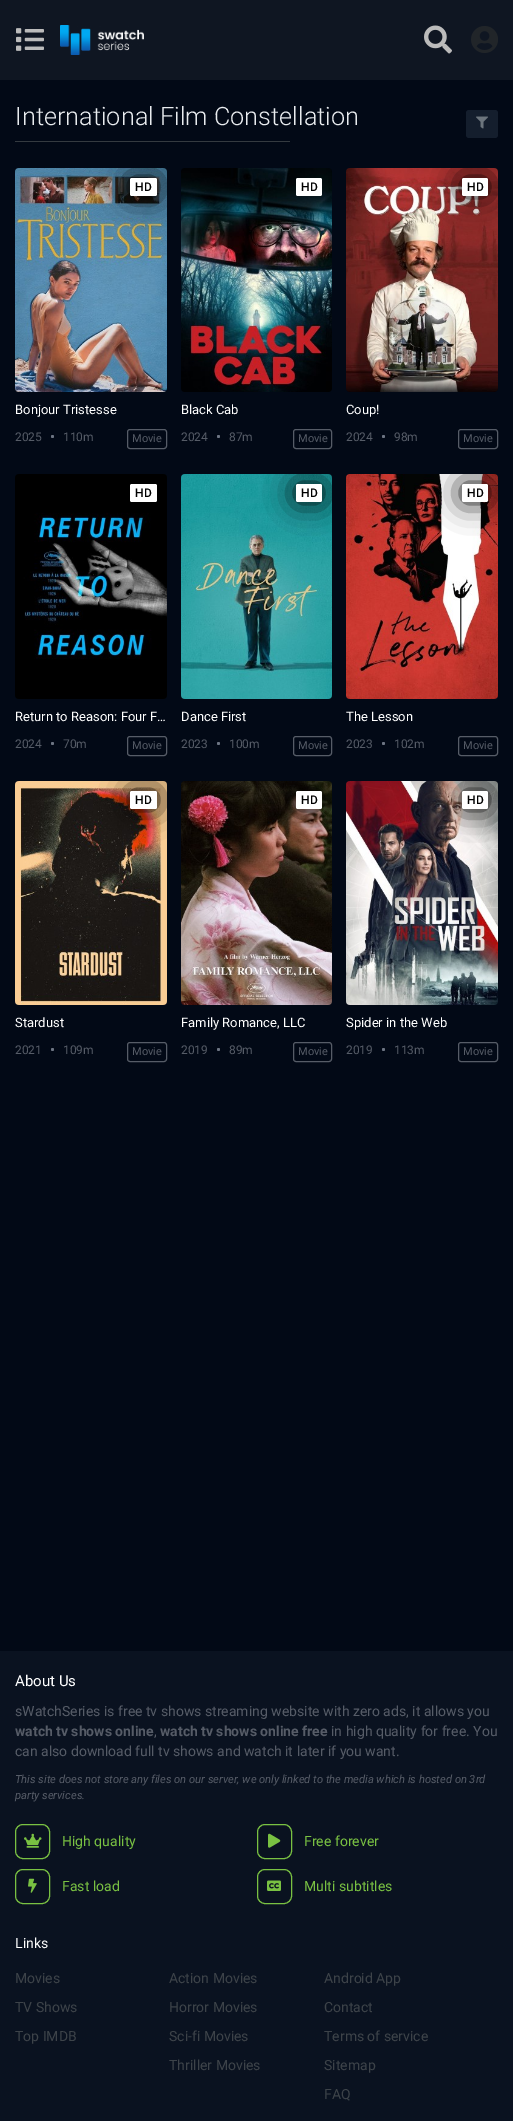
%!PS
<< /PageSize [513 2121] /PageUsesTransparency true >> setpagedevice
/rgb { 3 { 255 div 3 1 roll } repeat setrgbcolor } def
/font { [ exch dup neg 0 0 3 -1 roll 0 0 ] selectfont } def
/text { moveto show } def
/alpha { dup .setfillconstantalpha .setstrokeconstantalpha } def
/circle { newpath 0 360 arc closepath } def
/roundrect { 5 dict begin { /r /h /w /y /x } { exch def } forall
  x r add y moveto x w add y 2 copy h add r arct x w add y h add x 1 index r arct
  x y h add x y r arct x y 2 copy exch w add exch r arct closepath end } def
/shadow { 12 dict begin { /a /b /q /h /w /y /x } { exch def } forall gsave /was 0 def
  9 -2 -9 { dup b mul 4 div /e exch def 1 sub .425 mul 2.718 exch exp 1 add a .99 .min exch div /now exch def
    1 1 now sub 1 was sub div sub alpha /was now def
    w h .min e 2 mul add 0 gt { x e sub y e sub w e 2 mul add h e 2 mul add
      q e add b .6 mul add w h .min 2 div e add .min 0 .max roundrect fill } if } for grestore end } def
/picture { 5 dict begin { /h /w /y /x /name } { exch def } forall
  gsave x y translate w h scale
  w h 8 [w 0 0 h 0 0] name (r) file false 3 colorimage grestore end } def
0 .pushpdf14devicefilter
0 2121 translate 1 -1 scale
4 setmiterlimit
2 9 22 rgb
0 0 513 2121 rectfill
15 22 34 rgb
0 0 513 80 rectfill
(img_01.rgb) 16 28 28 23 picture
(img_02.rgb) 60 25 84 30 picture
(img_03.rgb) 424 25 28 29 picture
(img_04.rgb) 471 26 27 27 picture
52 58 64 rgb
15 141 275 1 rectfill
20 30 45 rgb
466 110 32 28 3 roundrect fill
(img_05.rgb) 476 116 12 13 picture
(img_06.rgb) 15 168 152 224 picture
(img_07.rgb) 181 168 151 224 picture
gsave
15 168 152 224 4 roundrect clip newpath
0 0 0 rgb
130 178 27 18 2 15 1 shadow
grestore
255 255 255 rgb
130 178 27 18 2 roundrect fill
109 117 131 rgb
52.5 436.5 1.5 circle fill
86 92 103 rgb
127.5 429.5 39 19 2.5 roundrect stroke
255 255 255 rgb
296 178 26 18 2 roundrect fill
109 117 131 rgb
218.5 436.5 1.5 circle fill
86 92 103 rgb
293.5 429.5 38 19 2.5 roundrect stroke
(img_08.rgb) 346 168 152 224 picture
gsave
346 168 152 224 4 roundrect clip newpath
0 0 0 rgb
462 178 26 18 2 15 1 shadow
grestore
255 255 255 rgb
462 178 26 18 2 roundrect fill
109 117 131 rgb
383.5 436.5 1.5 circle fill
86 92 103 rgb
458.5 429.5 39 19 2.5 roundrect stroke
(img_09.rgb) 15 474 152 225 picture
(img_10.rgb) 181 474 151 225 picture
gsave
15 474 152 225 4 roundrect clip newpath
0 0 0 rgb
130 484 27 18 2 15 1 shadow
grestore
255 255 255 rgb
130 484 27 18 2 roundrect fill
109 117 131 rgb
52.5 743.5 1.5 circle fill
86 92 103 rgb
127.5 736.5 39 19 2.5 roundrect stroke
(img_11.rgb) 346 474 152 225 picture
gsave
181 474 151 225 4 roundrect clip newpath
0 0 0 rgb
296 484 26 18 2 15 1 shadow
grestore
255 255 255 rgb
296 484 26 18 2 roundrect fill
109 117 131 rgb
218.5 743.5 1.5 circle fill
86 92 103 rgb
293.5 736.5 38 19 2.5 roundrect stroke
gsave
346 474 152 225 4 roundrect clip newpath
0 0 0 rgb
462 484 26 18 2 15 1 shadow
grestore
255 255 255 rgb
462 484 26 18 2 roundrect fill
109 117 131 rgb
383.5 743.5 1.5 circle fill
86 92 103 rgb
458.5 736.5 39 19 2.5 roundrect stroke
(img_12.rgb) 15 781 152 224 picture
(img_13.rgb) 181 781 151 224 picture
gsave
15 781 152 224 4 roundrect clip newpath
0 0 0 rgb
130 791 27 18 2 15 1 shadow
grestore
255 255 255 rgb
130 791 27 18 2 roundrect fill
109 117 131 rgb
52.5 1049.5 1.5 circle fill
86 92 103 rgb
127.5 1042.5 39 19 2.5 roundrect stroke
(img_14.rgb) 346 781 152 224 picture
gsave
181 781 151 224 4 roundrect clip newpath
0 0 0 rgb
296 791 26 18 2 15 1 shadow
grestore
255 255 255 rgb
296 791 26 18 2 roundrect fill
109 117 131 rgb
218.5 1049.5 1.5 circle fill
86 92 103 rgb
293.5 1042.5 38 19 2.5 roundrect stroke
gsave
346 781 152 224 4 roundrect clip newpath
0 0 0 rgb
462 791 26 18 2 15 1 shadow
grestore
255 255 255 rgb
462 791 26 18 2 roundrect fill
109 117 131 rgb
383.5 1049.5 1.5 circle fill
86 92 103 rgb
458.5 1042.5 39 19 2.5 roundrect stroke
10 18 32 rgb
0 1651 513 470 rectfill
121 193 66 rgb
15.5 1824.5 34 34 7.5 roundrect stroke
(img_15.rgb) 24 1833 18 15 picture
257.5 1824.5 34 34 7.5 roundrect stroke
(img_16.rgb) 268 1833 13 15 picture
15.5 1869.5 34 34 7.5 roundrect stroke
(img_17.rgb) 28 1878 9 15 picture
257.5 1869.5 34 34 7.5 roundrect stroke
(img_18.rgb) 267 1880 14 11 picture
/Roboto-Light 25.25 font
233 236 239 rgb
(International Film Constellation) 15 125 text
/Roboto-Medium 12 font
0 0 0 rgb
(HD) 135 191 text
/Roboto-Regular 13 font
255 255 255 rgb
(Bonjour Tristesse) 15 414 text
/Roboto-Regular 12 font
86 92 103 rgb
(2025) 15 441 text
(110m) 63 441 text
/Roboto-Regular 11 font
(Movie) 132 442 text
/Roboto-Medium 12 font
0 0 0 rgb
(HD) 301 191 text
/Roboto-Regular 13 font
255 255 255 rgb
(Black Cab) 181 414 text
/Roboto-Regular 12 font
86 92 103 rgb
(2024) 181 441 text
(87m) 229 441 text
/Roboto-Regular 11 font
(Movie) 298 442 text
/Roboto-Medium 12 font
0 0 0 rgb
(HD) 467 191 text
/Roboto-Regular 13 font
255 255 255 rgb
(Coup!) 346 414 text
/Roboto-Regular 12 font
86 92 103 rgb
(2024) 346 441 text
(98m) 394 441 text
/Roboto-Regular 11 font
(Movie) 463 442 text
/Roboto-Medium 12 font
0 0 0 rgb
(HD) 135 497 text
/Roboto-Regular 13 font
255 255 255 rgb
(Return to Reason: Four F…) 15 721 text
/Roboto-Regular 12 font
86 92 103 rgb
(2024) 15 748 text
(70m) 63 748 text
/Roboto-Regular 11 font
(Movie) 132 749 text
/Roboto-Medium 12 font
0 0 0 rgb
(HD) 301 497 text
/Roboto-Regular 13 font
255 255 255 rgb
(Dance First) 181 721 text
/Roboto-Regular 12 font
86 92 103 rgb
(2023) 181 748 text
(100m) 229 748 text
/Roboto-Regular 11 font
(Movie) 298 749 text
/Roboto-Medium 12 font
0 0 0 rgb
(HD) 467 497 text
/Roboto-Regular 13 font
255 255 255 rgb
(The Lesson) 346 721 text
/Roboto-Regular 12 font
86 92 103 rgb
(2023) 346 748 text
(102m) 394 748 text
/Roboto-Regular 11 font
(Movie) 463 749 text
/Roboto-Medium 12 font
0 0 0 rgb
(HD) 135 804 text
/Roboto-Regular 13 font
255 255 255 rgb
(Stardust) 15 1027 text
/Roboto-Regular 12 font
86 92 103 rgb
(2021) 15 1054 text
(109m) 63 1054 text
/Roboto-Regular 11 font
(Movie) 132 1055 text
/Roboto-Medium 12 font
0 0 0 rgb
(HD) 301 804 text
/Roboto-Regular 13 font
255 255 255 rgb
(Family Romance, LLC) 181 1027 text
/Roboto-Regular 12 font
86 92 103 rgb
(2019) 181 1054 text
(89m) 229 1054 text
/Roboto-Regular 11 font
(Movie) 298 1055 text
/Roboto-Medium 12 font
0 0 0 rgb
(HD) 467 804 text
/Roboto-Regular 13 font
255 255 255 rgb
(Spider in the Web) 346 1027 text
/Roboto-Regular 12 font
86 92 103 rgb
(2019) 346 1054 text
(113m) 394 1054 text
/Roboto-Regular 11 font
(Movie) 463 1055 text
/Roboto-Regular 15 font
255 255 255 rgb
(About Us) 15 1686 text
/Roboto-Regular 14 font
86 92 103 rgb
(sWatchSeries is free tv shows streaming website with zero ads, it allows you) 15 1716 text
/Roboto-Bold 14 font
(watch tv shows online) 15 1736 text
/Roboto-Regular 14 font
(,) 154 1736 text
/Roboto-Bold 14 font
(watch tv shows online free) 160 1736 text
/Roboto-Regular 14 font
(in high quality for free. You) 331 1736 text
(can also download full tv shows and watch it later if you want.) 15 1756 text
/Roboto-Italic 11.2 font
(This site does not store any files on our server, we only linked to the media which is hosted on 3rd) 15 1783 text
(party services.) 15 1799 text
/Roboto-Regular 14 font
121 193 66 rgb
(High quality) 62 1846 text
(Free forever) 304 1846 text
(Fast load) 62 1891 text
(Multi subtitles) 304 1891 text
255 255 255 rgb
(Links) 15 1948 text
61 67 73 rgb
(Movies) 15 1983 text
(TV Shows) 15 2012 text
(Top IMDB) 15 2041 text
(Action Movies) 169 1983 text
(Horror Movies) 169 2012 text
(Sci-fi Movies) 169 2041 text
(Thriller Movies) 169 2070 text
(Android App) 324 1983 text
(Contact) 324 2012 text
(Terms of service) 324 2041 text
(Sitemap) 324 2070 text
(FAQ) 324 2099 text
.poppdf14devicefilter showpage
